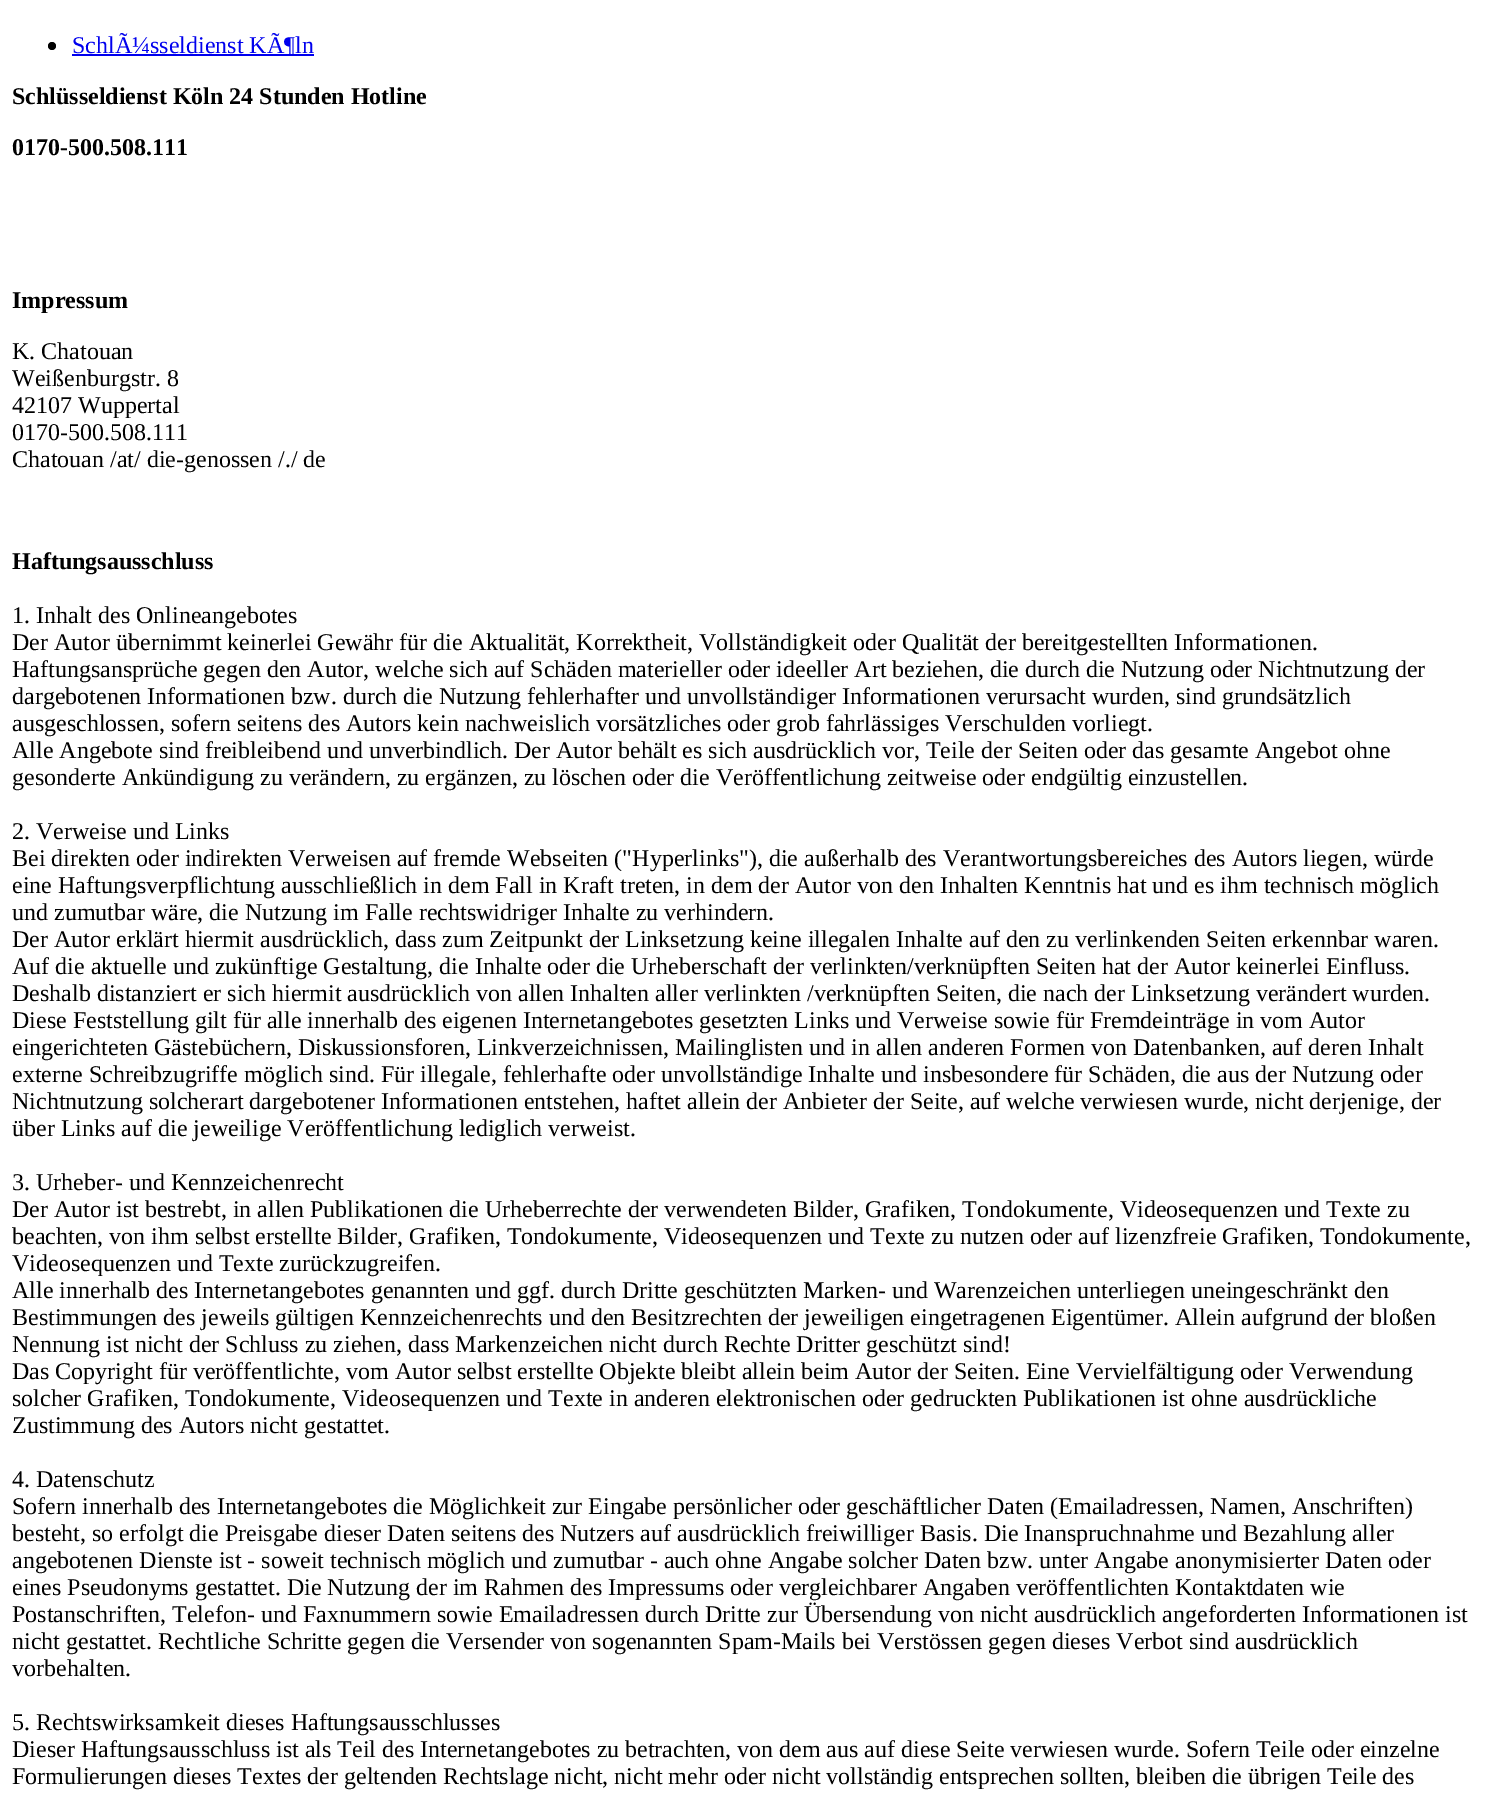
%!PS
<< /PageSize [1489 1801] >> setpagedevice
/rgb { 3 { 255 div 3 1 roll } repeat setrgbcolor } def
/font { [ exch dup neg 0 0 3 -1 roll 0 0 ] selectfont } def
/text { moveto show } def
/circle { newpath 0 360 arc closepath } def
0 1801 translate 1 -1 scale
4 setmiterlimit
255 255 255 rgb
0 0 1489 1801 rectfill
0 0 0 rgb
52 46 4 circle fill
0 0 238 rgb
72 54 242 2 rectfill
/LiberationSerif-Regular 24 font
(SchlÃ¼sseldienst KÃ¶ln) 72 53 text
/LiberationSerif-Bold 24 font
0 0 0 rgb
(Schlüsseldienst Köln 24 Stunden Hotline) 12 104 text
(0170-500.508.111) 12 155 text
(Impressum) 12 308 text
/LiberationSerif-Regular 24 font
(K. Chatouan) 12 359 text
(Weißenburgstr. 8) 12 386 text
(42107 Wuppertal) 12 413 text
(0170-500.508.111) 12 440 text
(Chatouan /at/ die-genossen /./ de) 12 467 text
/LiberationSerif-Bold 24 font
(Haftungsausschluss) 12 569 text
/LiberationSerif-Regular 24 font
(1. Inhalt des Onlineangebotes) 12 623 text
(Der Autor übernimmt keinerlei Gewähr für die Aktualität, Korrektheit, Vollständigkeit oder Qualität der bereitgestellten Informationen.) 12 650 text
(Haftungsansprüche gegen den Autor, welche sich auf Schäden materieller oder ideeller Art beziehen, die durch die Nutzung oder Nichtnutzung der) 12 677 text
(dargebotenen Informationen bzw. durch die Nutzung fehlerhafter und unvollständiger Informationen verursacht wurden, sind grundsätzlich) 12 704 text
(ausgeschlossen, sofern seitens des Autors kein nachweislich vorsätzliches oder grob fahrlässiges Verschulden vorliegt.) 12 731 text
(Alle Angebote sind freibleibend und unverbindlich. Der Autor behält es sich ausdrücklich vor, Teile der Seiten oder das gesamte Angebot ohne) 12 758 text
(gesonderte Ankündigung zu verändern, zu ergänzen, zu löschen oder die Veröffentlichung zeitweise oder endgültig einzustellen.) 12 785 text
(2. Verweise und Links) 12 839 text
(Bei direkten oder indirekten Verweisen auf fremde Webseiten \("Hyperlinks"\), die außerhalb des Verantwortungsbereiches des Autors liegen, würde) 12 866 text
(eine Haftungsverpflichtung ausschließlich in dem Fall in Kraft treten, in dem der Autor von den Inhalten Kenntnis hat und es ihm technisch möglich) 12 893 text
(und zumutbar wäre, die Nutzung im Falle rechtswidriger Inhalte zu verhindern.) 12 920 text
(Der Autor erklärt hiermit ausdrücklich, dass zum Zeitpunkt der Linksetzung keine illegalen Inhalte auf den zu verlinkenden Seiten erkennbar waren.) 12 947 text
(Auf die aktuelle und zukünftige Gestaltung, die Inhalte oder die Urheberschaft der verlinkten/verknüpften Seiten hat der Autor keinerlei Einfluss.) 12 974 text
(Deshalb distanziert er sich hiermit ausdrücklich von allen Inhalten aller verlinkten /verknüpften Seiten, die nach der Linksetzung verändert wurden.) 12 1001 text
(Diese Feststellung gilt für alle innerhalb des eigenen Internetangebotes gesetzten Links und Verweise sowie für Fremdeinträge in vom Autor) 12 1028 text
(eingerichteten Gästebüchern, Diskussionsforen, Linkverzeichnissen, Mailinglisten und in allen anderen Formen von Datenbanken, auf deren Inhalt) 12 1055 text
(externe Schreibzugriffe möglich sind. Für illegale, fehlerhafte oder unvollständige Inhalte und insbesondere für Schäden, die aus der Nutzung oder) 12 1082 text
(Nichtnutzung solcherart dargebotener Informationen entstehen, haftet allein der Anbieter der Seite, auf welche verwiesen wurde, nicht derjenige, der) 12 1109 text
(über Links auf die jeweilige Veröffentlichung lediglich verweist.) 12 1136 text
(3. Urheber- und Kennzeichenrecht) 12 1190 text
(Der Autor ist bestrebt, in allen Publikationen die Urheberrechte der verwendeten Bilder, Grafiken, Tondokumente, Videosequenzen und Texte zu) 12 1217 text
(beachten, von ihm selbst erstellte Bilder, Grafiken, Tondokumente, Videosequenzen und Texte zu nutzen oder auf lizenzfreie Grafiken, Tondokumente,) 12 1244 text
(Videosequenzen und Texte zurückzugreifen.) 12 1271 text
(Alle innerhalb des Internetangebotes genannten und ggf. durch Dritte geschützten Marken- und Warenzeichen unterliegen uneingeschränkt den) 12 1298 text
(Bestimmungen des jeweils gültigen Kennzeichenrechts und den Besitzrechten der jeweiligen eingetragenen Eigentümer. Allein aufgrund der bloßen) 12 1325 text
(Nennung ist nicht der Schluss zu ziehen, dass Markenzeichen nicht durch Rechte Dritter geschützt sind!) 12 1352 text
(Das Copyright für veröffentlichte, vom Autor selbst erstellte Objekte bleibt allein beim Autor der Seiten. Eine Vervielfältigung oder Verwendung) 12 1379 text
(solcher Grafiken, Tondokumente, Videosequenzen und Texte in anderen elektronischen oder gedruckten Publikationen ist ohne ausdrückliche) 12 1406 text
(Zustimmung des Autors nicht gestattet.) 12 1433 text
(4. Datenschutz) 12 1487 text
(Sofern innerhalb des Internetangebotes die Möglichkeit zur Eingabe persönlicher oder geschäftlicher Daten \(Emailadressen, Namen, Anschriften\)) 12 1514 text
(besteht, so erfolgt die Preisgabe dieser Daten seitens des Nutzers auf ausdrücklich freiwilliger Basis. Die Inanspruchnahme und Bezahlung aller) 12 1541 text
(angebotenen Dienste ist - soweit technisch möglich und zumutbar - auch ohne Angabe solcher Daten bzw. unter Angabe anonymisierter Daten oder) 12 1568 text
(eines Pseudonyms gestattet. Die Nutzung der im Rahmen des Impressums oder vergleichbarer Angaben veröffentlichten Kontaktdaten wie) 12 1595 text
(Postanschriften, Telefon- und Faxnummern sowie Emailadressen durch Dritte zur Übersendung von nicht ausdrücklich angeforderten Informationen ist) 12 1622 text
(nicht gestattet. Rechtliche Schritte gegen die Versender von sogenannten Spam-Mails bei Verstössen gegen dieses Verbot sind ausdrücklich) 12 1649 text
(vorbehalten.) 12 1676 text
(5. Rechtswirksamkeit dieses Haftungsausschlusses) 12 1730 text
(Dieser Haftungsausschluss ist als Teil des Internetangebotes zu betrachten, von dem aus auf diese Seite verwiesen wurde. Sofern Teile oder einzelne) 12 1757 text
(Formulierungen dieses Textes der geltenden Rechtslage nicht, nicht mehr oder nicht vollständig entsprechen sollten, bleiben die übrigen Teile des) 12 1784 text
showpage
